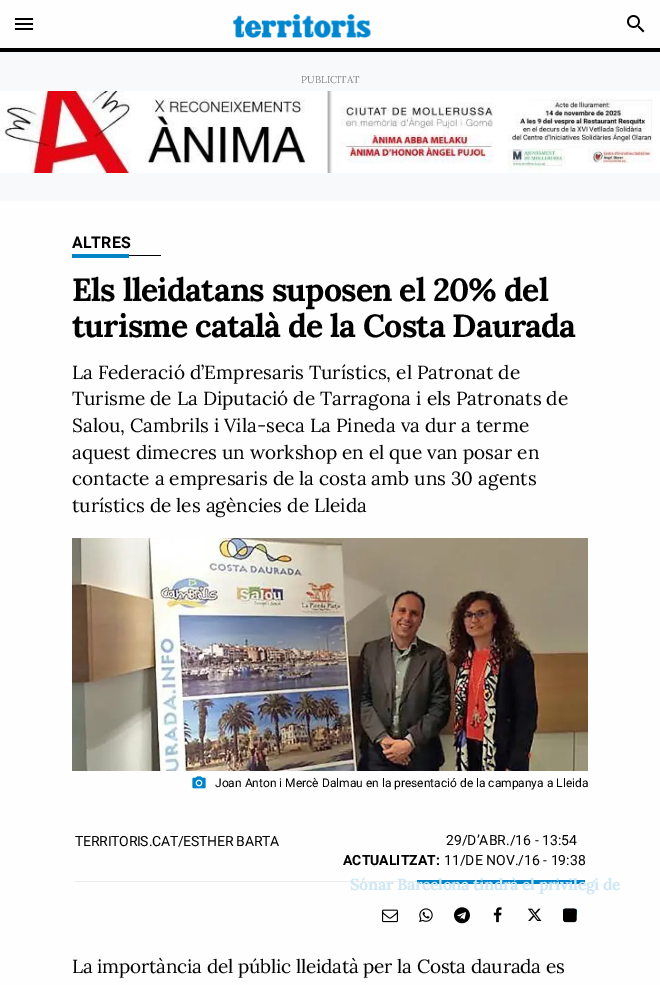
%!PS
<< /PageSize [660 985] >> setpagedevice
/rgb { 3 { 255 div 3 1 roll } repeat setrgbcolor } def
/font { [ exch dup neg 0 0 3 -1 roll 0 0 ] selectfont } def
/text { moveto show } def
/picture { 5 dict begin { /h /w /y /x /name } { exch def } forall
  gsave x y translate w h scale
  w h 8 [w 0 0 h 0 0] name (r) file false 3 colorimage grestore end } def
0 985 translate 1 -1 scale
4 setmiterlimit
254 254 254 rgb
0 0 660 985 rectfill
0 0 0 rgb
0 48 660 4 rectfill
(img_01.rgb) 15 18 18 12 picture
(img_02.rgb) 233 14 138 24 picture
(img_03.rgb) 627 15 18 18 picture
248 249 250 rgb
0 52 660 149 rectfill
(img_04.rgb) 0 91 660 82 picture
0 0 0 rgb
129 255 32 1 rectfill
0 131 201 rgb
72 254 57 4 rectfill
(img_05.rgb) 72 538 516 233 picture
(img_06.rgb) 192 776 14 13 picture
237 237 237 rgb
75 881 342 1 rectfill
0 131 201 rgb
417 880 168 4 rectfill
(img_07.rgb) 382 909 16 14 picture
(img_08.rgb) 419 908 14 15 picture
(img_09.rgb) 454 907 16 17 picture
(img_10.rgb) 493 907 9 16 picture
(img_11.rgb) 527 908 15 13 picture
(img_12.rgb) 563 908 14 8 picture
(img_13.rgb) 563 908 14 15 picture
/Lora-Regular 10 font
131 131 131 rgb
(PUBLICITAT) 301 83 text
/Roboto-Bold 16 font
0 0 0 rgb
(ALTRES) 72 248 text
/Lora-Bold 32 font
72 301 moveto -0.8 0 (Els lleidatans suposen el 20% del) ashow
72 337 moveto -0.8 0 (turisme català de la Costa Daurada) ashow
/Lora-Regular 19 font
(La Federació d’Empresaris Turístics, el Patronat de) 72 379 text
(Turisme de La Diputació de Tarragona i els Patronats de) 72 405 text
(Salou, Cambrils i Vila-seca La Pineda va dur a terme) 72 432 text
(aquest dimecres un workshop en el que van posar en) 72 459 text
(contacte a empresaris de la costa amb uns 30 agents) 72 485 text
(turístics de les agències de Lleida) 72 512 text
/Roboto-Regular 12 font
(Joan Anton i Mercè Dalmau en la presentació de la campanya a Lleida) 215 787 text
/Roboto-Regular 14 font
75 846 moveto -0.25 0 (TERRITORIS.CAT/ESTHER BARTA) ashow
(29/D’ABR./16 - 13:54) 446 845 text
/Roboto-Bold 14 font
(ACTUALITZAT:) 343 865 text
/Roboto-Regular 14 font
(11/DE NOV./16 - 19:38) 444 865 text
/Lora-Regular 19 font
72 973 moveto -0.2 0 (La importància del públic lleidatà per la Costa daurada es) ashow
/Lora-Bold 16 font
208 232 245 rgb
350 890 moveto -0.4 0 (Sónar Barcelona tindrà el privilegi de) ashow
showpage
